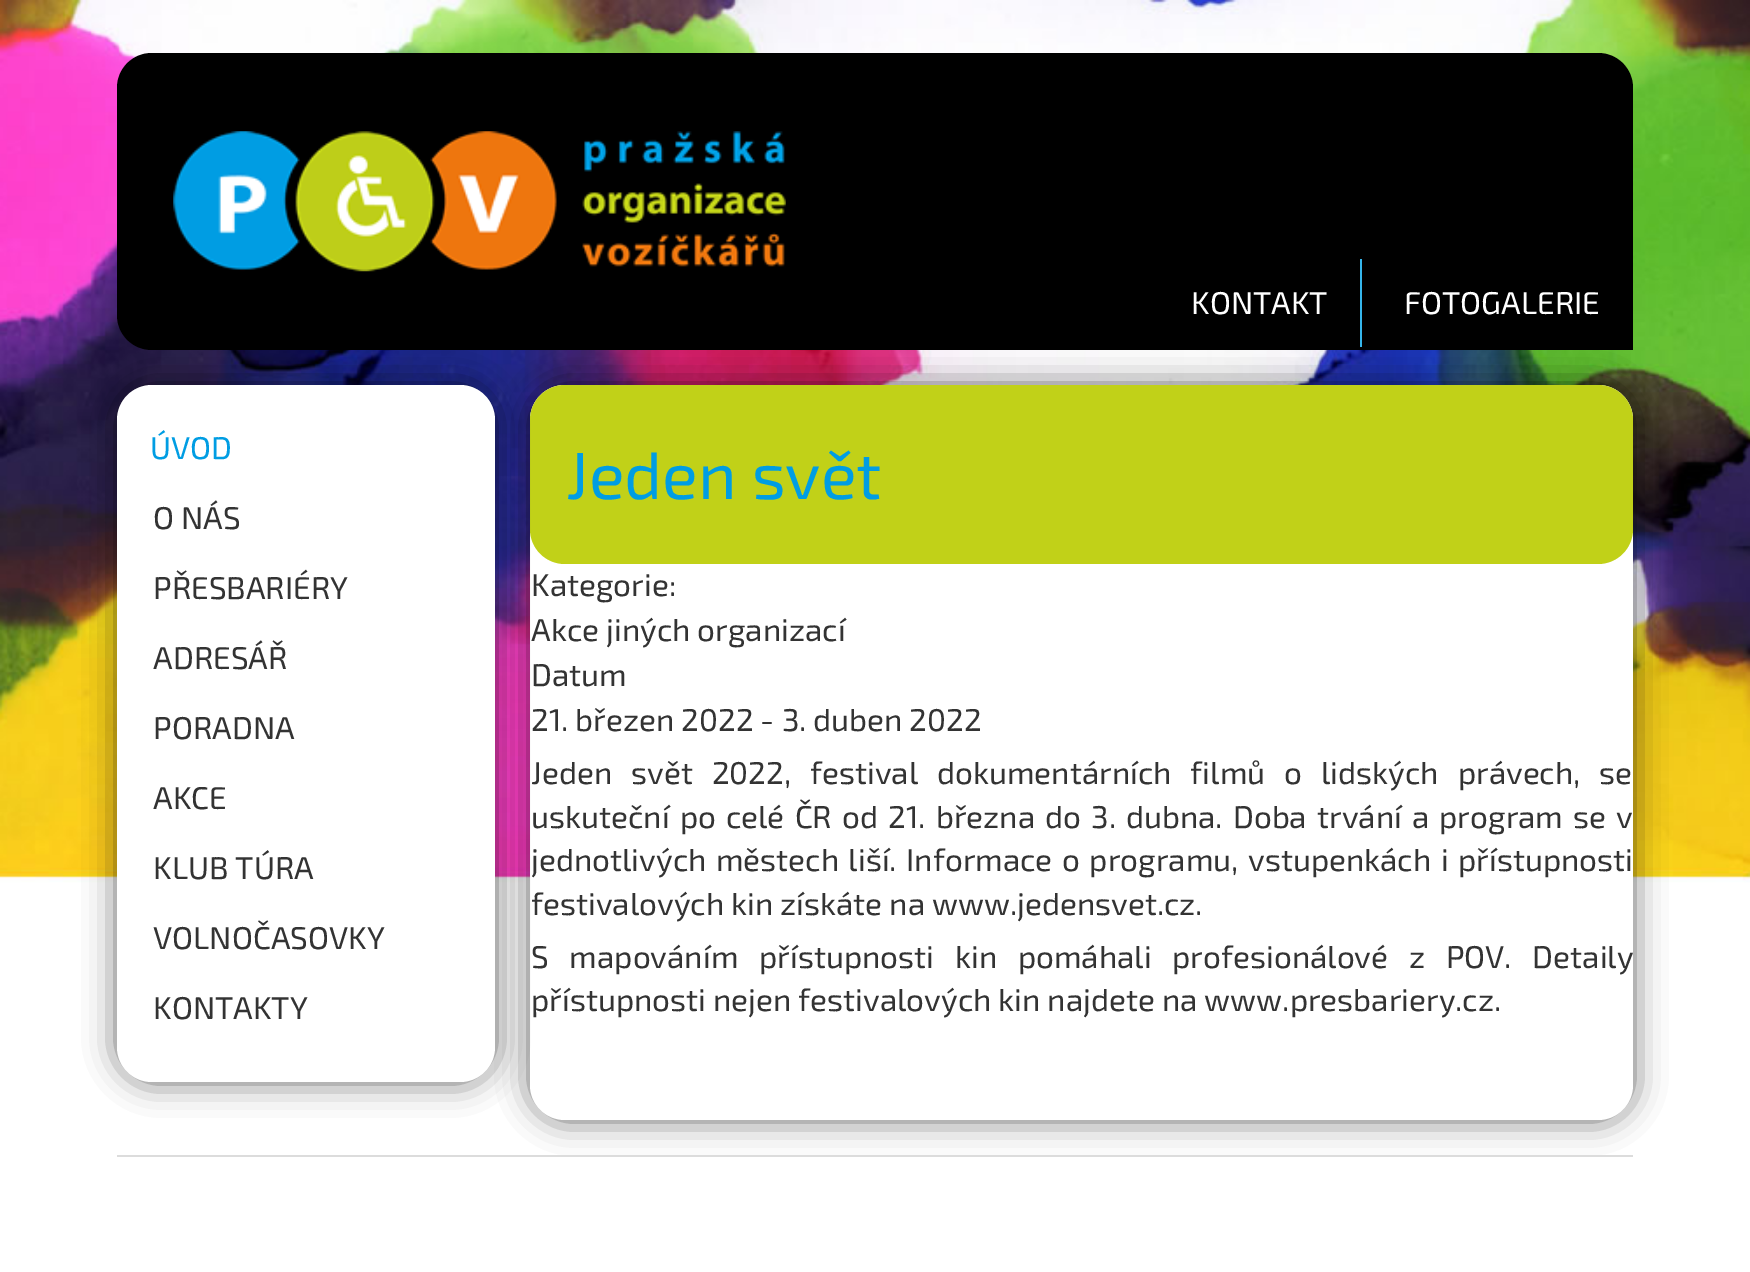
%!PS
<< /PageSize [1750 1272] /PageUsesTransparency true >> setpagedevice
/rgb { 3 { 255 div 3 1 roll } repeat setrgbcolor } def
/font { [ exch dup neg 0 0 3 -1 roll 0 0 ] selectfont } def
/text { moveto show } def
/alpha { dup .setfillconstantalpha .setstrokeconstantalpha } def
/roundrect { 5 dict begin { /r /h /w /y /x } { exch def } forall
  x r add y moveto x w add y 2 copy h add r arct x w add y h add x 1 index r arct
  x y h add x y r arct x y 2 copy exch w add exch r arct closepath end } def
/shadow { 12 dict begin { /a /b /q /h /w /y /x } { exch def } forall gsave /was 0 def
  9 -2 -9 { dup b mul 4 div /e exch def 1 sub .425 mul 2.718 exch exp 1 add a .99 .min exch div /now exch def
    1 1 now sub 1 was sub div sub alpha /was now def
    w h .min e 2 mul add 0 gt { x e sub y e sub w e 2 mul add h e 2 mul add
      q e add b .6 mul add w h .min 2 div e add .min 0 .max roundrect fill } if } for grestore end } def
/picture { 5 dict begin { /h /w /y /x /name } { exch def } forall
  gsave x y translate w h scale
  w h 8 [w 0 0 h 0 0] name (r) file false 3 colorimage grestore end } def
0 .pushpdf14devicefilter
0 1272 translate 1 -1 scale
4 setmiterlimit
255 255 255 rgb
0 0 1750 1272 rectfill
(img_01.rgb) 0 0 1750 883 picture
0 0 0 rgb
152 53 moveto 1446 0 rlineto 19.5 0 35 15.5 35 35 rcurveto 0 262 rlineto -1481 0 rlineto -19.5 0 -35 -15.5 -35 -35 rcurveto 0 -227 rlineto 0 -19.5 15.5 -35 35 -35 rcurveto closepath fill
(img_02.rgb) 173 131 613 141 picture
530 385 1103 735 35 16 0.59 shadow
53 181 235 rgb
1360 259 2 88 rectfill
255 255 255 rgb
530 385 1103 735 35 roundrect fill
193 209 24 rgb
530 385 1103 179 35 roundrect fill
0 0 0 rgb
117 385 378 697 35 16 0.59 shadow
255 255 255 rgb
117 385 378 697 35 roundrect fill
220 220 220 rgb
117 1155 1516 2 rectfill
/Exo2-Regular 31.5 font
255 255 255 rgb
(KONTAKT) 1191 314 text
(FOTOGALERIE) 1404 314 text
0 157 227 rgb
(ÚVOD) 150 459 text
51 51 51 rgb
(O NÁS) 153 529 text
(PŘESBARIÉRY) 153 599 text
(ADRESÁŘ) 153 669 text
(PORADNA) 153 739 text
(AKCE) 153 809 text
(KLUB TÚRA) 153 879 text
(VOLNOČASOVKY) 153 949 text
(KONTAKTY) 153 1019 text
/Exo2-Regular 66.5 font
0 157 227 rgb
(Jeden svět) 566 499 text
/Exo2-Regular 31.5 font
51 51 51 rgb
(Kategorie:) 531 596 text
(Akce jiných organizací) 531 641 text
(Datum) 531 686 text
(21. březen 2022 - 3. duben 2022) 531 731 text
531 784 moveto 12 0 32 (Jeden svět 2022, festival dokumentárních filmů o lidských právech, se) widthshow
531 828 moveto 3.1 0 32 (uskuteční po celé ČR od 21. března do 3. dubna. Doba trvání a program se v) widthshow
531 871 moveto 2.5 0 32 (jednotlivých městech liší. Informace o programu, vstupenkách i přístupnosti) widthshow
(festivalových kin získáte na www.jedensvet.cz.) 531 915 text
531 968 moveto 13.75 0 32 (S mapováním přístupnosti kin pomáhali profesionálové z POV. Detaily) widthshow
(přístupnosti nejen festivalových kin najdete na www.presbariery.cz.) 531 1011 text
.poppdf14devicefilter showpage
